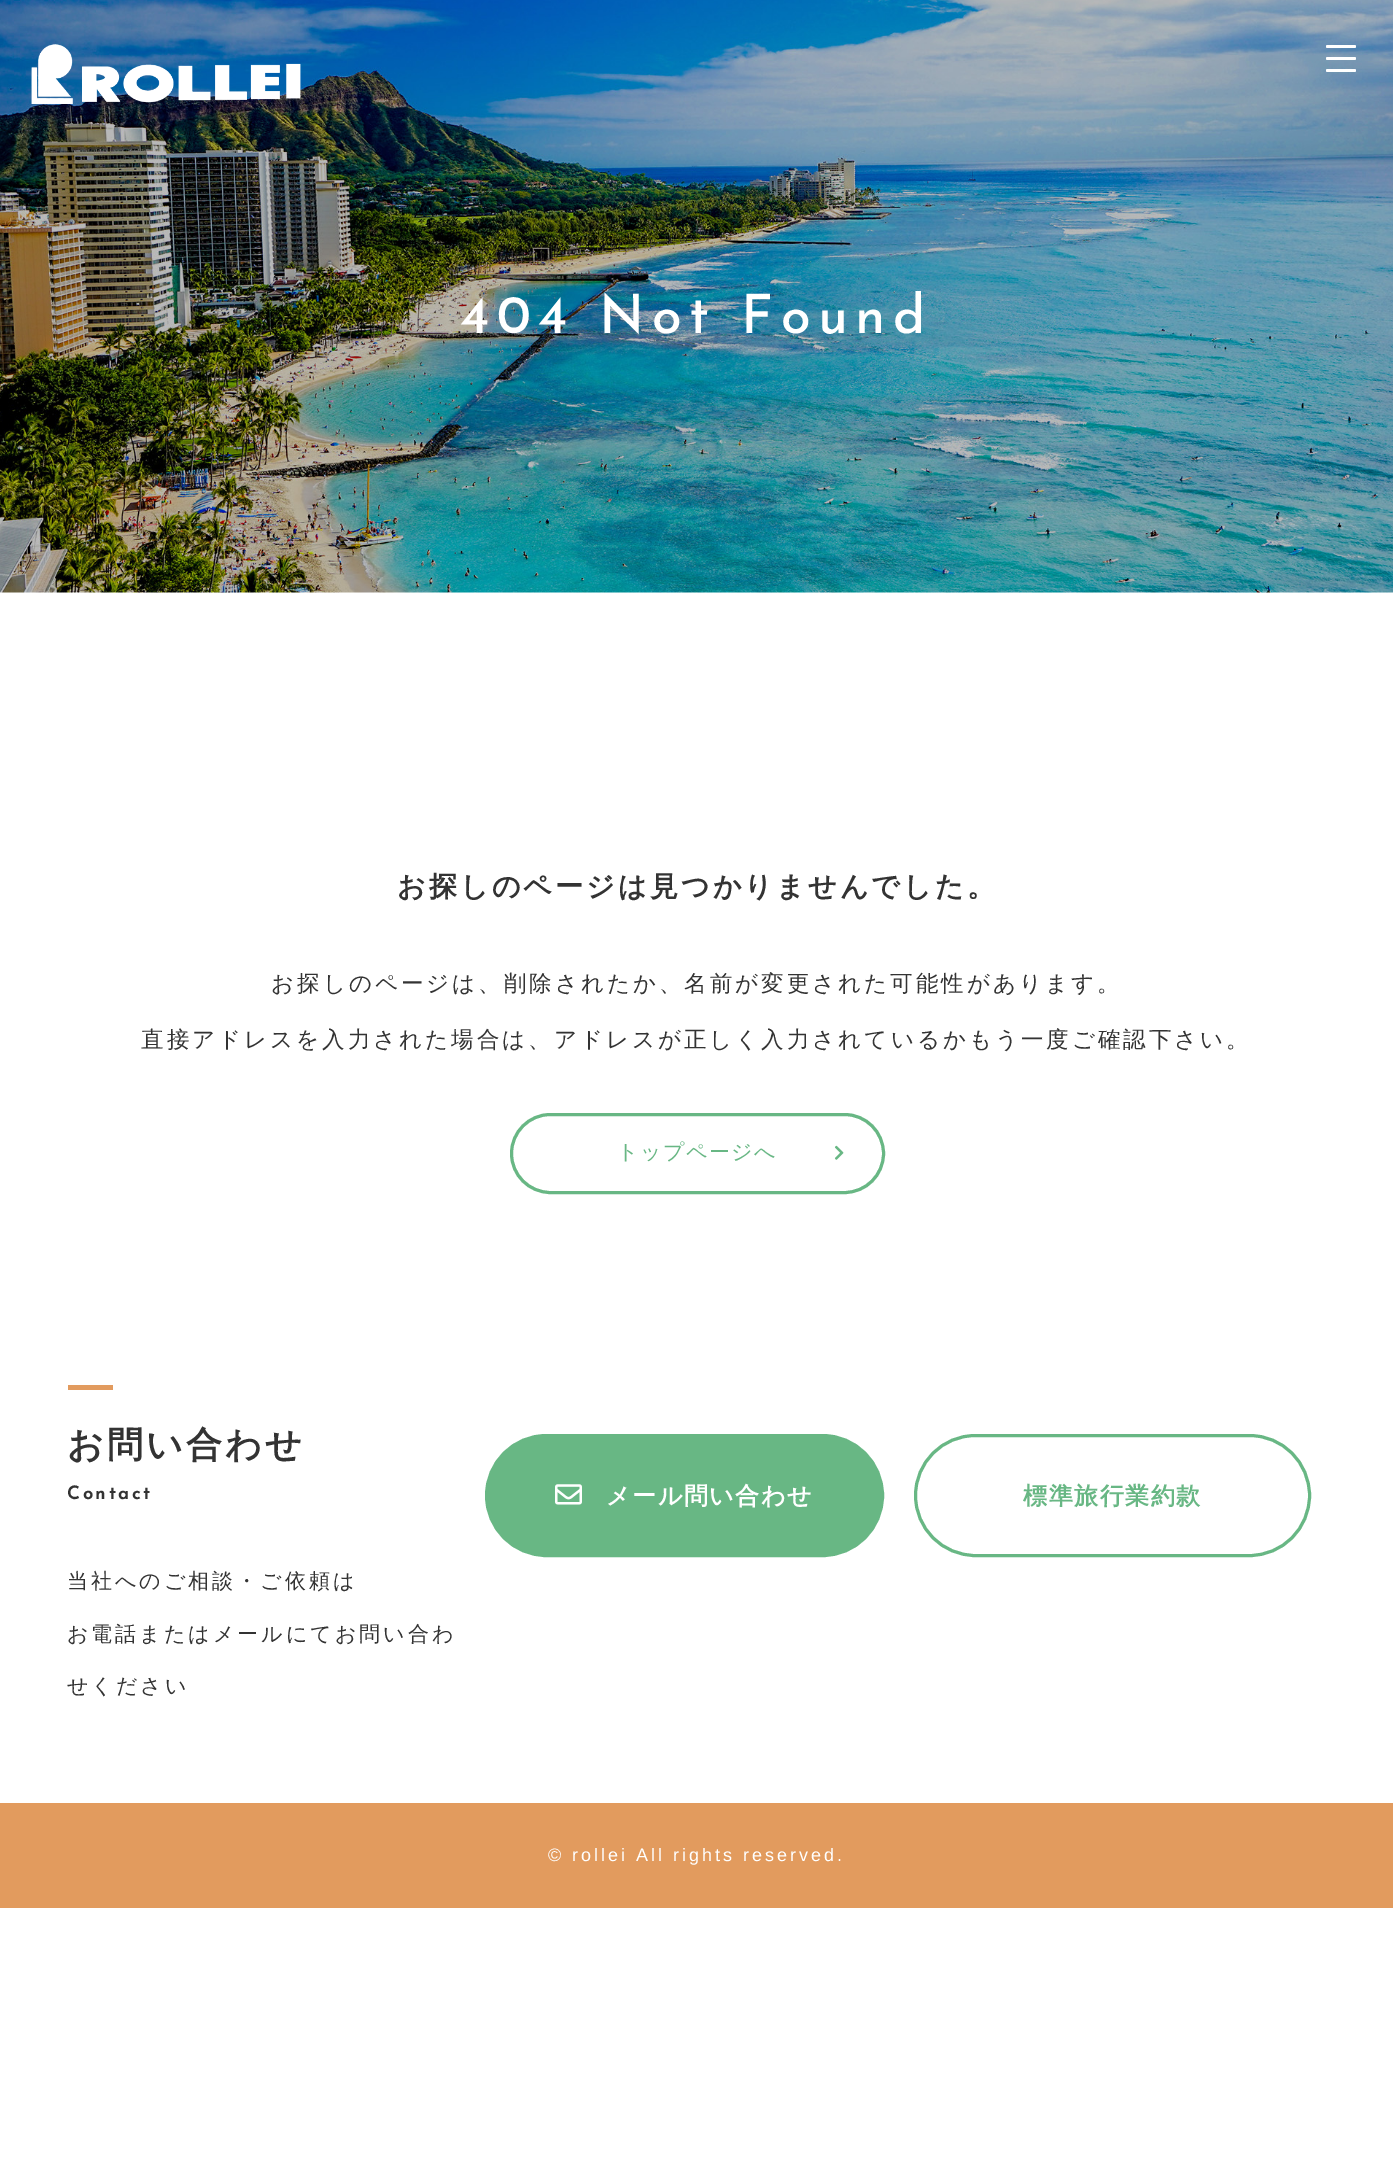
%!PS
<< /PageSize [1393 2184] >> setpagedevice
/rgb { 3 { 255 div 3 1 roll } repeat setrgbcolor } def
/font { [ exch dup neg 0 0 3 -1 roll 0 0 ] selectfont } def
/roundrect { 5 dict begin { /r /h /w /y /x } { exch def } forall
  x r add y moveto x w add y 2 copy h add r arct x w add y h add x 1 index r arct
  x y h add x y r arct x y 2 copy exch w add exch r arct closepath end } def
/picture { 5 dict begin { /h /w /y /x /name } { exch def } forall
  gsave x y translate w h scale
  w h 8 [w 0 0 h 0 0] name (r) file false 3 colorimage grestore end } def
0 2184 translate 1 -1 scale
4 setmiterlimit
255 255 255 rgb
0 0 1393 2184 rectfill
(img_02.rgb) 0 0 1393 593 picture
(img_01.rgb) 31 44 270 60 picture
1326 45 30 3 1.5 roundrect fill
1326 57 30 3 1.5 roundrect fill
1326 69 30 3 1.5 roundrect fill
104 183 132 rgb
3 setlinewidth
511.5 1114.5 372 78 39 roundrect stroke
(img_03.rgb) 834 1145 10 15 picture
226 155 94 rgb
68 1385 45 5 rectfill
104 183 132 rgb
486.5 1435.5 396 120 60 roundrect gsave fill grestore
stroke
(img_04.rgb) 555 1484 27 21 picture
915.5 1435.5 394 120 60 roundrect stroke
226 155 94 rgb
0 1803 1393 105 rectfill
/JosefinSans-Thin 54 font
255 255 255 rgb
460 333 moveto 7.5 0 (404 Not Found) ashow
/WenQuanYiZenHei-Bold 28.1 font
51 51 51 rgb
397 896 moveto 3 0 (お探しのページは見つかりませんでした。) ashow
/WenQuanYiZenHei-Medium 22.5 font
271 991 moveto 3 0 (お探しのページは、削除されたか、名前が変更された可能性があります。) ashow
141 1047 moveto 3 0 (直接アドレスを入力された場合は、アドレスが正しく入力されているかもう一度ご確認下さい。) ashow
/WenQuanYiZenHei-Medium 21 font
104 183 132 rgb
617 1159 moveto 1.5 0 (トップページへ) ashow
/WenQuanYiZenHei-Bold 36 font
51 51 51 rgb
67 1457 moveto 3 0 (お問い合わせ) ashow
/JosefinSans-Bold 18 font
67 1499 moveto 3 0 (Contact) ashow
/WenQuanYiZenHei-Medium 21 font
67 1588 moveto 3 0 (当社へのご相談・ご依頼は) ashow
67 1641 moveto 3 0 (お電話またはメールにてお問い合わ) ashow
67 1693 moveto 3 0 (せください) ashow
/WenQuanYiZenHei-Bold 24 font
255 255 255 rgb
606 1504 moveto 1.5 0 (メール問い合わせ) ashow
104 183 132 rgb
1023 1504 moveto 1.5 0 (標準旅行業約款) ashow
/LiberationSans-Regular 18 font
255 255 255 rgb
548 1861 moveto 3 0 (© rollei All rights reserved.) ashow
showpage
